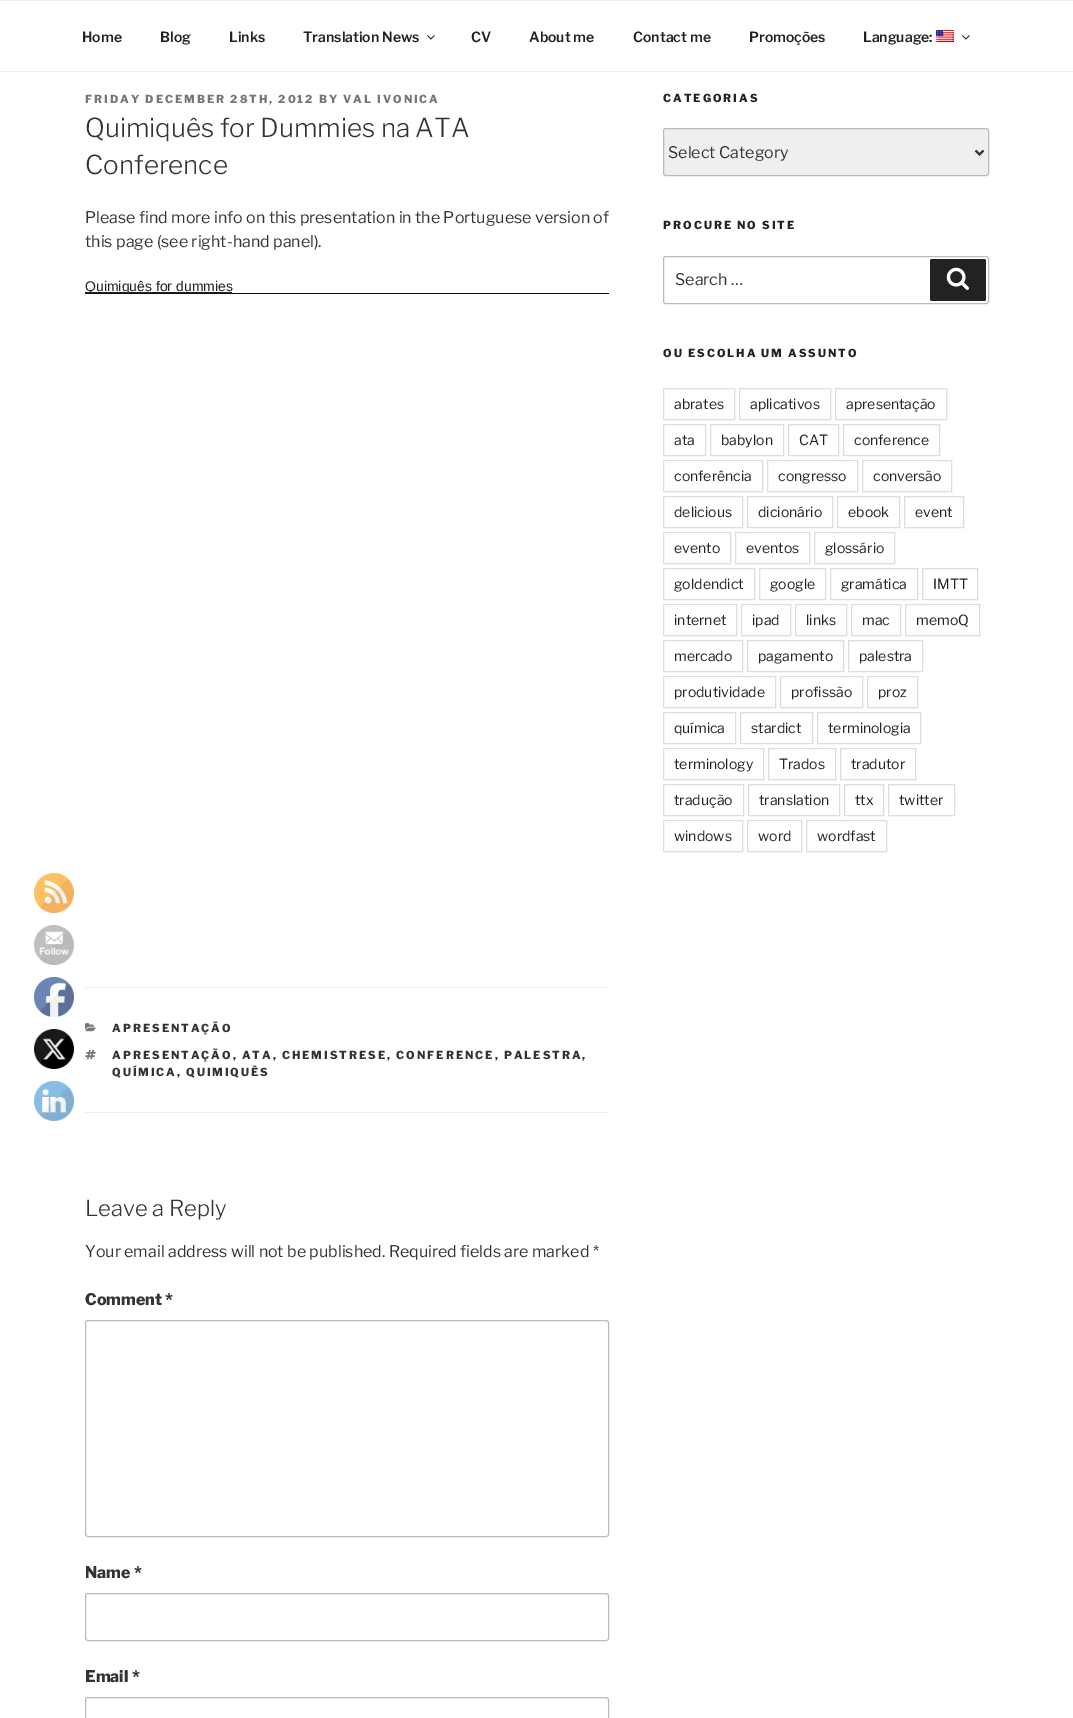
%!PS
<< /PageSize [1073 1718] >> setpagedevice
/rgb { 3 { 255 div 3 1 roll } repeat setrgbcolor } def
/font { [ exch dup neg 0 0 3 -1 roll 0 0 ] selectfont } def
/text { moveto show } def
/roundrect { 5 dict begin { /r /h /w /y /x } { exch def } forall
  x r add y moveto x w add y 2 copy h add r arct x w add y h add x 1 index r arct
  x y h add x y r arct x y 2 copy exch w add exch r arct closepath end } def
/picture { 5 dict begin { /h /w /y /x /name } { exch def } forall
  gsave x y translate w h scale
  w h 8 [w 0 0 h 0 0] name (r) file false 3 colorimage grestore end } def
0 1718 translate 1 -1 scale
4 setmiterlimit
255 255 255 rgb
0 0 1073 1718 rectfill
(img_01.rgb) 34 873 40 40 picture
(img_02.rgb) 34 925 40 40 picture
(img_03.rgb) 34 977 40 40 picture
(img_04.rgb) 34 1029 40 40 picture
(img_05.rgb) 34 1081 40 40 picture
238 238 238 rgb
0 0 1073 1 rectfill
0 71 1073 1 rectfill
(img_06.rgb) 427 35 8 5 picture
(img_07.rgb) 936 30 18 12 picture
(img_06.rgb) 962 35 8 5 picture
15 15 15 rgb
85 293 524 1 rectfill
34 34 34 rgb
85 292 147 1 rectfill
238 238 238 rgb
85 987 524 1 rectfill
85 1112 524 1 rectfill
(img_08.rgb) 85 1023 11 9 picture
(img_09.rgb) 85 1049 11 11 picture
187 187 187 rgb
85.5 1320.5 523 216 2.5 roundrect stroke
85.5 1593.5 523 47 2.5 roundrect stroke
85.5 1697.5 523 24 2.5 roundrect stroke
239 239 239 rgb
663.5 128.5 325 47 2.5 roundrect gsave fill grestore
187 187 187 rgb
stroke
51 51 51 rgb
2 setlinewidth
975.5 150.5 moveto 4 4 rlineto 4 -4 rlineto stroke
187 187 187 rgb
1 setlinewidth
663.5 256.5 325 47 2.5 roundrect stroke
34 34 34 rgb
930 259 56 42 2 roundrect fill
(img_10.rgb) 946 267 23 23 picture
221 221 221 rgb
663.5 388.5 71 31 rectstroke
739.5 388.5 91 31 rectstroke
835.5 388.5 111 31 rectstroke
663.5 424.5 42 31 rectstroke
710.5 424.5 73 31 rectstroke
788.5 424.5 50 31 rectstroke
843.5 424.5 96 31 rectstroke
663.5 460.5 99 31 rectstroke
767.5 460.5 90 31 rectstroke
862.5 460.5 89 31 rectstroke
663.5 496.5 79 31 rectstroke
747.5 496.5 85 31 rectstroke
837.5 496.5 62 31 rectstroke
904.5 496.5 59 31 rectstroke
663.5 532.5 67 31 rectstroke
735.5 532.5 74 31 rectstroke
814.5 532.5 80 31 rectstroke
663.5 568.5 91 31 rectstroke
759.5 568.5 66 31 rectstroke
830.5 568.5 87 31 rectstroke
922.5 568.5 55 31 rectstroke
663.5 604.5 73 31 rectstroke
741.5 604.5 49 31 rectstroke
795.5 604.5 51 31 rectstroke
851.5 604.5 49 31 rectstroke
905.5 604.5 74 31 rectstroke
663.5 640.5 79 31 rectstroke
747.5 640.5 96 31 rectstroke
848.5 640.5 74 31 rectstroke
663.5 676.5 112 31 rectstroke
780.5 676.5 82 31 rectstroke
867.5 676.5 50 31 rectstroke
663.5 712.5 72 31 rectstroke
740.5 712.5 72 31 rectstroke
817.5 712.5 103 31 rectstroke
663.5 748.5 100 31 rectstroke
768.5 748.5 67 31 rectstroke
840.5 748.5 75 31 rectstroke
663.5 784.5 80 31 rectstroke
748.5 784.5 91 31 rectstroke
844.5 784.5 39 31 rectstroke
888.5 784.5 66 31 rectstroke
663.5 820.5 79 31 rectstroke
747.5 820.5 54 31 rectstroke
806.5 820.5 80 31 rectstroke
/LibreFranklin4-Thin 14 font
34 34 34 rgb
(Home) 82 42 text
(Blog) 160 42 text
(Links) 229 42 text
(Translation News) 303 42 text
(CV) 471 42 text
(About me) 529 42 text
(Contact me) 633 42 text
(Promoções) 749 42 text
(Language:) 863 42 text
/LibreFranklin-Thin 11 font
118 118 118 rgb
85 103 moveto 2 0 (FRIDAY DECEMBER 28TH, 2012 BY VAL IVONICA) ashow
/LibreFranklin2-Thin 26 font
51 51 51 rgb
(Quimiquês for Dummies na ATA) 85 137 text
(Conference) 85 174 text
/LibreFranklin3-Thin 16 font
(Please find more info on this presentation in the Portuguese version of) 85 223 text
(this page \(see right-hand panel\).) 85 247 text
/LiberationSans-Regular 14 font
34 34 34 rgb
(Quimiquês for dummies) 85 291 text
/LibreFranklin-Thin 11 font
51 51 51 rgb
112 1032 moveto 2 0 (APRESENTAÇÃO) ashow
112 1059 moveto 2 0 (APRESENTAÇÃO, ATA, CHEMISTRESE, CONFERENCE, PALESTRA,) ashow
112 1076 moveto 2 0 (QUÍMICA, QUIMIQUÊS) ashow
/LibreFranklin2-Thin 22 font
(Leave a Reply) 85 1216 text
/LibreFranklin3-Thin 16 font
(Your email address will not be published. Required fields are marked *) 85 1257 text
/LibreFranklin-Thin 16 font
(Comment *) 85 1305 text
(Name *) 85 1578 text
(Email *) 85 1682 text
/LibreFranklin-Thin 11 font
34 34 34 rgb
663 102 moveto 2 0 (CATEGORIAS) ashow
/LibreFranklin3-Thin 16 font
51 51 51 rgb
(Select Category) 668 158 text
/LibreFranklin-Thin 11 font
34 34 34 rgb
663 229 moveto 2 0 (PROCURE NO SITE) ashow
/LibreFranklin3-Thin 16 font
51 51 51 rgb
(Search …) 675 285 text
/LibreFranklin-Thin 11 font
34 34 34 rgb
663 357 moveto 2 0 (OU ESCOLHA UM ASSUNTO) ashow
/LibreFranklin3-Thin 14 font
(abrates) 674 409 text
(aplicativos) 750 409 text
(apresentação) 846 409 text
(ata) 674 445 text
(babylon) 721 445 text
(CAT) 799 445 text
(conference) 854 445 text
(conferência) 674 481 text
(congresso) 778 481 text
(conversão) 873 481 text
(delicious) 674 517 text
(dicionário) 758 517 text
(ebook) 848 517 text
(event) 915 517 text
(evento) 674 553 text
(eventos) 746 553 text
(glossário) 825 553 text
(goldendict) 674 589 text
(google) 770 589 text
(gramática) 841 589 text
(IMTT) 933 589 text
(internet) 674 625 text
(ipad) 752 625 text
(links) 806 625 text
(mac) 862 625 text
(memoQ) 916 625 text
(mercado) 674 661 text
(pagamento) 758 661 text
(palestra) 859 661 text
(produtividade) 674 697 text
(profissão) 791 697 text
(proz) 878 697 text
(química) 674 733 text
(stardict) 751 733 text
(terminologia) 828 733 text
(terminology) 674 769 text
(Trados) 779 769 text
(tradutor) 851 769 text
(tradução) 674 805 text
(translation) 759 805 text
(ttx) 855 805 text
(twitter) 899 805 text
(windows) 674 841 text
(word) 758 841 text
(wordfast) 817 841 text
showpage
